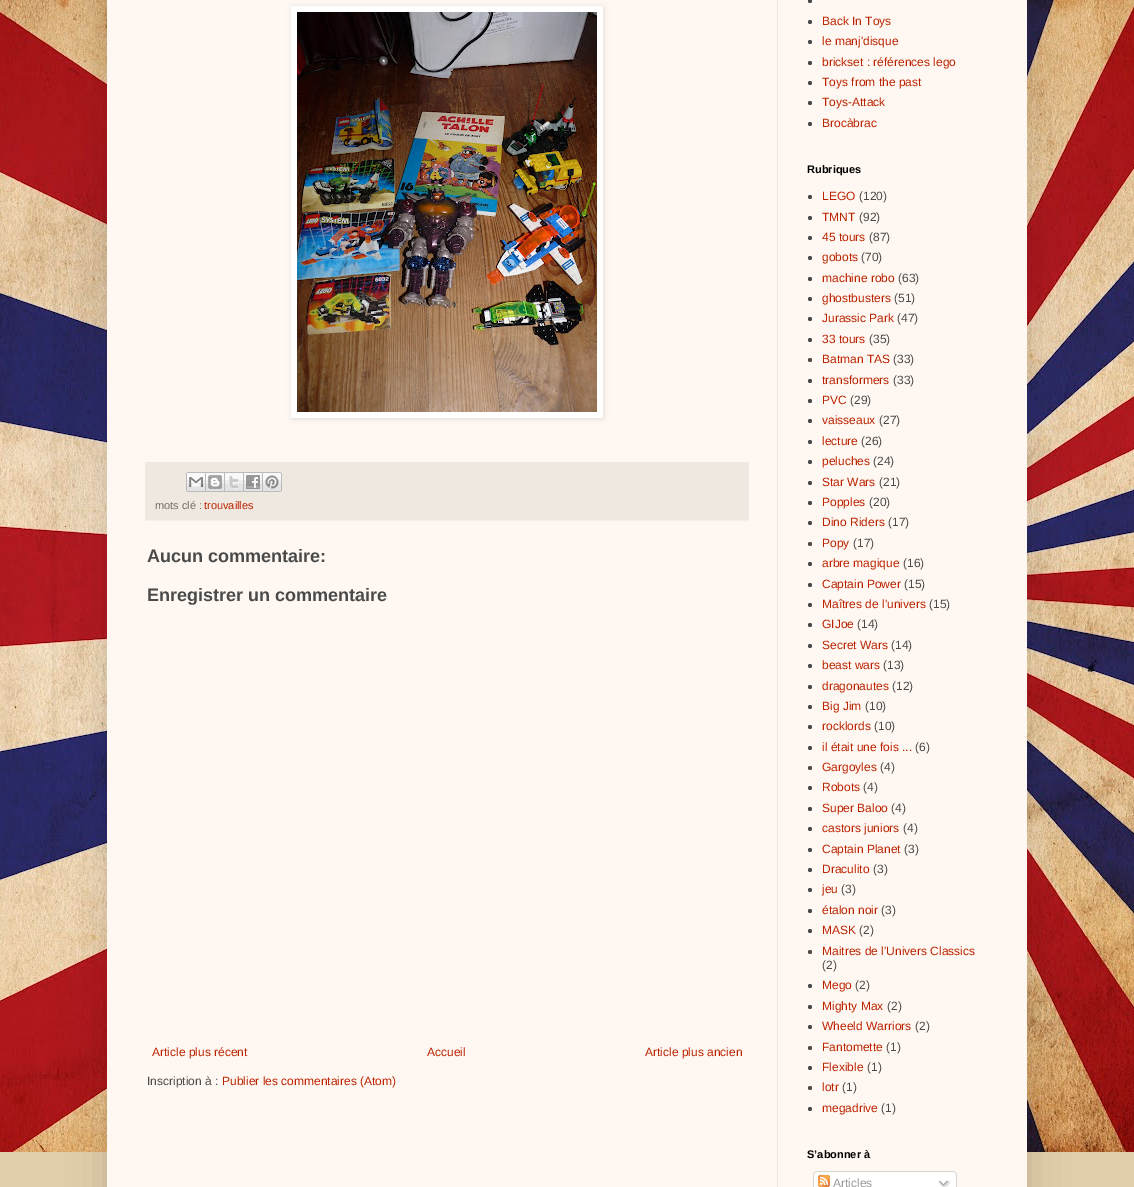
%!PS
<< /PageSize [1134 1187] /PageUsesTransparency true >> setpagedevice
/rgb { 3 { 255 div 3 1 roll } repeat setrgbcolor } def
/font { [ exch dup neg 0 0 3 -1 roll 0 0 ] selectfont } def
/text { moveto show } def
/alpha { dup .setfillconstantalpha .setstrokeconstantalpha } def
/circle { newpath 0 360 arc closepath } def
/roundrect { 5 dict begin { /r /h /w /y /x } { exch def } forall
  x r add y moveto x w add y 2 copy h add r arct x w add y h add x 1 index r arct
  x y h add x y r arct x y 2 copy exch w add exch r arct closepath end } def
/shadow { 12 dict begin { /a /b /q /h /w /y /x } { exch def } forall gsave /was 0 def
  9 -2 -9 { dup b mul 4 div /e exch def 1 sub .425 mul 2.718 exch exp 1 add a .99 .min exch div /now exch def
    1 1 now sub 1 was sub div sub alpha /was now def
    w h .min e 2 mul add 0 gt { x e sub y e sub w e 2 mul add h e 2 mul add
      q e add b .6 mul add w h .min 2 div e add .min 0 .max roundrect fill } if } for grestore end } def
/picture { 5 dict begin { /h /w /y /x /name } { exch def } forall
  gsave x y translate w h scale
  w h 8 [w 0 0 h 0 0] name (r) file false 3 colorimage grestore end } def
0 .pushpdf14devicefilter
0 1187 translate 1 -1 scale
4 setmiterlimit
226 206 171 rgb
0 0 1134 1187 rectfill
(img_01.rgb) 0 0 1134 1152 picture
0 0 0 rgb
107 -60 920 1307 0 20 0.15 shadow
255 248 242 rgb
107 0 920 1187 rectfill
239 229 224 rgb
777 0 1 1187 rectfill
0 0 0 rgb
292 7 312 412 0 2.5 0.1 shadow
255 255 255 rgb
291 6 312 412 rectfill
(img_02.rgb) 297 12 300 400 picture
239 232 224 rgb
145 462 604 58 rectfill
240 240 240 rgb
145 520 604 1 rectfill
(img_03.rgb) 186 472 20 20 picture
(img_04.rgb) 206 472 19 20 picture
(img_05.rgb) 225 472 19 20 picture
(img_06.rgb) 244 472 19 20 picture
(img_07.rgb) 263 472 19 20 picture
74 74 74 rgb
810 1 2 circle fill
810 22 2 circle fill
810 42 2 circle fill
810 63 2 circle fill
810 83 2 circle fill
810 103 2 circle fill
810 124 2 circle fill
810 197 2 circle fill
810 218 2 circle fill
810 238 2 circle fill
810 258 2 circle fill
810 279 2 circle fill
810 299 2 circle fill
810 319 2 circle fill
810 340 2 circle fill
810 360 2 circle fill
810 381 2 circle fill
810 401 2 circle fill
810 421 2 circle fill
810 442 2 circle fill
810 462 2 circle fill
810 483 2 circle fill
810 503 2 circle fill
810 523 2 circle fill
810 544 2 circle fill
810 564 2 circle fill
810 585 2 circle fill
810 605 2 circle fill
810 625 2 circle fill
810 646 2 circle fill
810 666 2 circle fill
810 687 2 circle fill
810 707 2 circle fill
810 727 2 circle fill
810 748 2 circle fill
810 768 2 circle fill
810 788 2 circle fill
810 809 2 circle fill
810 829 2 circle fill
810 850 2 circle fill
810 870 2 circle fill
810 890 2 circle fill
810 911 2 circle fill
810 931 2 circle fill
810 952 2 circle fill
810 986 2 circle fill
810 1007 2 circle fill
810 1027 2 circle fill
810 1048 2 circle fill
810 1068 2 circle fill
810 1088 2 circle fill
810 1109 2 circle fill
(img_08.rgb) 813 1171 144 16 picture
(img_09.rgb) 818 1175 12 12 picture
(img_10.rgb) 938 1180 13 7 picture
/LiberationSans-Regular 11 font
115 111 96 rgb
(mots clé :) 155 509 text
187 34 0 rgb
(trouvailles) 204 509 text
/LiberationSans-Bold 18 font
74 74 74 rgb
(Aucun commentaire:) 147 562 text
(Enregistrer un commentaire) 147 601 text
/LiberationSans-Regular 12 font
187 34 0 rgb
(Article plus récent) 152 1056 text
(Accueil) 427 1056 text
(Article plus ancien) 645 1056 text
74 74 74 rgb
(Inscription à :) 147 1085 text
187 34 0 rgb
(Publier les commentaires \(Atom\)) 222 1085 text
(Back In Toys) 822 25 text
(le manj'disque) 822 45 text
(brickset : références lego) 822 66 text
(Toys from the past) 822 86 text
(Toys-Attack) 822 106 text
(Brocàbrac) 822 127 text
/LiberationSans-Bold 11 font
0 0 0 rgb
(Rubriques) 807 173 text
/LiberationSans-Regular 12 font
187 34 0 rgb
(LEGO) 822 200 text
74 74 74 rgb
(\(120\)) 859 200 text
187 34 0 rgb
(TMNT) 822 221 text
74 74 74 rgb
(\(92\)) 859 221 text
187 34 0 rgb
(45 tours) 822 241 text
74 74 74 rgb
(\(87\)) 869 241 text
187 34 0 rgb
(gobots) 822 261 text
74 74 74 rgb
(\(70\)) 861 261 text
187 34 0 rgb
(machine robo) 822 282 text
74 74 74 rgb
(\(63\)) 898 282 text
187 34 0 rgb
(ghostbusters) 822 302 text
74 74 74 rgb
(\(51\)) 894 302 text
187 34 0 rgb
(Jurassic Park) 822 322 text
74 74 74 rgb
(\(47\)) 897 322 text
187 34 0 rgb
(33 tours) 822 343 text
74 74 74 rgb
(\(35\)) 869 343 text
187 34 0 rgb
(Batman TAS) 822 363 text
74 74 74 rgb
(\(33\)) 893 363 text
187 34 0 rgb
(transformers) 822 384 text
74 74 74 rgb
(\(33\)) 893 384 text
187 34 0 rgb
(PVC) 822 404 text
74 74 74 rgb
(\(29\)) 850 404 text
187 34 0 rgb
(vaisseaux) 822 424 text
74 74 74 rgb
(\(27\)) 879 424 text
187 34 0 rgb
(lecture) 822 445 text
74 74 74 rgb
(\(26\)) 861 445 text
187 34 0 rgb
(peluches) 822 465 text
74 74 74 rgb
(\(24\)) 873 465 text
187 34 0 rgb
(Star Wars) 822 486 text
74 74 74 rgb
(\(21\)) 879 486 text
187 34 0 rgb
(Popples) 822 506 text
74 74 74 rgb
(\(20\)) 869 506 text
187 34 0 rgb
(Dino Riders) 822 526 text
74 74 74 rgb
(\(17\)) 888 526 text
187 34 0 rgb
(Popy) 822 547 text
74 74 74 rgb
(\(17\)) 853 547 text
187 34 0 rgb
(arbre magique) 822 567 text
74 74 74 rgb
(\(16\)) 903 567 text
187 34 0 rgb
(Captain Power) 822 588 text
74 74 74 rgb
(\(15\)) 904 588 text
187 34 0 rgb
(Maîtres de l'univers) 822 608 text
74 74 74 rgb
(\(15\)) 929 608 text
187 34 0 rgb
(GIJoe) 822 628 text
74 74 74 rgb
(\(14\)) 857 628 text
187 34 0 rgb
(Secret Wars) 822 649 text
74 74 74 rgb
(\(14\)) 891 649 text
187 34 0 rgb
(beast wars) 822 669 text
74 74 74 rgb
(\(13\)) 883 669 text
187 34 0 rgb
(dragonautes) 822 690 text
74 74 74 rgb
(\(12\)) 892 690 text
187 34 0 rgb
(Big Jim) 822 710 text
74 74 74 rgb
(\(10\)) 865 710 text
187 34 0 rgb
(rocklords) 822 730 text
74 74 74 rgb
(\(10\)) 874 730 text
187 34 0 rgb
(il était une fois ...) 822 751 text
74 74 74 rgb
(\(6\)) 915 751 text
187 34 0 rgb
(Gargoyles) 822 771 text
74 74 74 rgb
(\(4\)) 880 771 text
187 34 0 rgb
(Robots) 822 791 text
74 74 74 rgb
(\(4\)) 863 791 text
187 34 0 rgb
(Super Baloo) 822 812 text
74 74 74 rgb
(\(4\)) 891 812 text
187 34 0 rgb
(castors juniors) 822 832 text
74 74 74 rgb
(\(4\)) 903 832 text
187 34 0 rgb
(Captain Planet) 822 853 text
74 74 74 rgb
(\(3\)) 904 853 text
187 34 0 rgb
(Draculito) 822 873 text
74 74 74 rgb
(\(3\)) 873 873 text
187 34 0 rgb
(jeu) 822 893 text
74 74 74 rgb
(\(3\)) 841 893 text
187 34 0 rgb
(étalon noir) 822 914 text
74 74 74 rgb
(\(3\)) 881 914 text
187 34 0 rgb
(MASK) 822 934 text
74 74 74 rgb
(\(2\)) 859 934 text
187 34 0 rgb
(Maitres de l'Univers Classics) 822 955 text
74 74 74 rgb
(\(2\)) 822 969 text
187 34 0 rgb
(Mego) 822 989 text
74 74 74 rgb
(\(2\)) 855 989 text
187 34 0 rgb
(Mighty Max) 822 1010 text
74 74 74 rgb
(\(2\)) 887 1010 text
187 34 0 rgb
(Wheeld Warriors) 822 1030 text
74 74 74 rgb
(\(2\)) 915 1030 text
187 34 0 rgb
(Fantomette) 822 1051 text
74 74 74 rgb
(\(1\)) 886 1051 text
187 34 0 rgb
(Flexible) 822 1071 text
74 74 74 rgb
(\(1\)) 867 1071 text
187 34 0 rgb
(lotr) 822 1091 text
74 74 74 rgb
(\(1\)) 842 1091 text
187 34 0 rgb
(megadrive) 822 1112 text
74 74 74 rgb
(\(1\)) 881 1112 text
/LiberationSans-Bold 11 font
0 0 0 rgb
(S’abonner à) 807 1158 text
/LiberationSans-Regular 12 font
153 153 153 rgb
(Articles) 833 1187 text
.poppdf14devicefilter showpage
